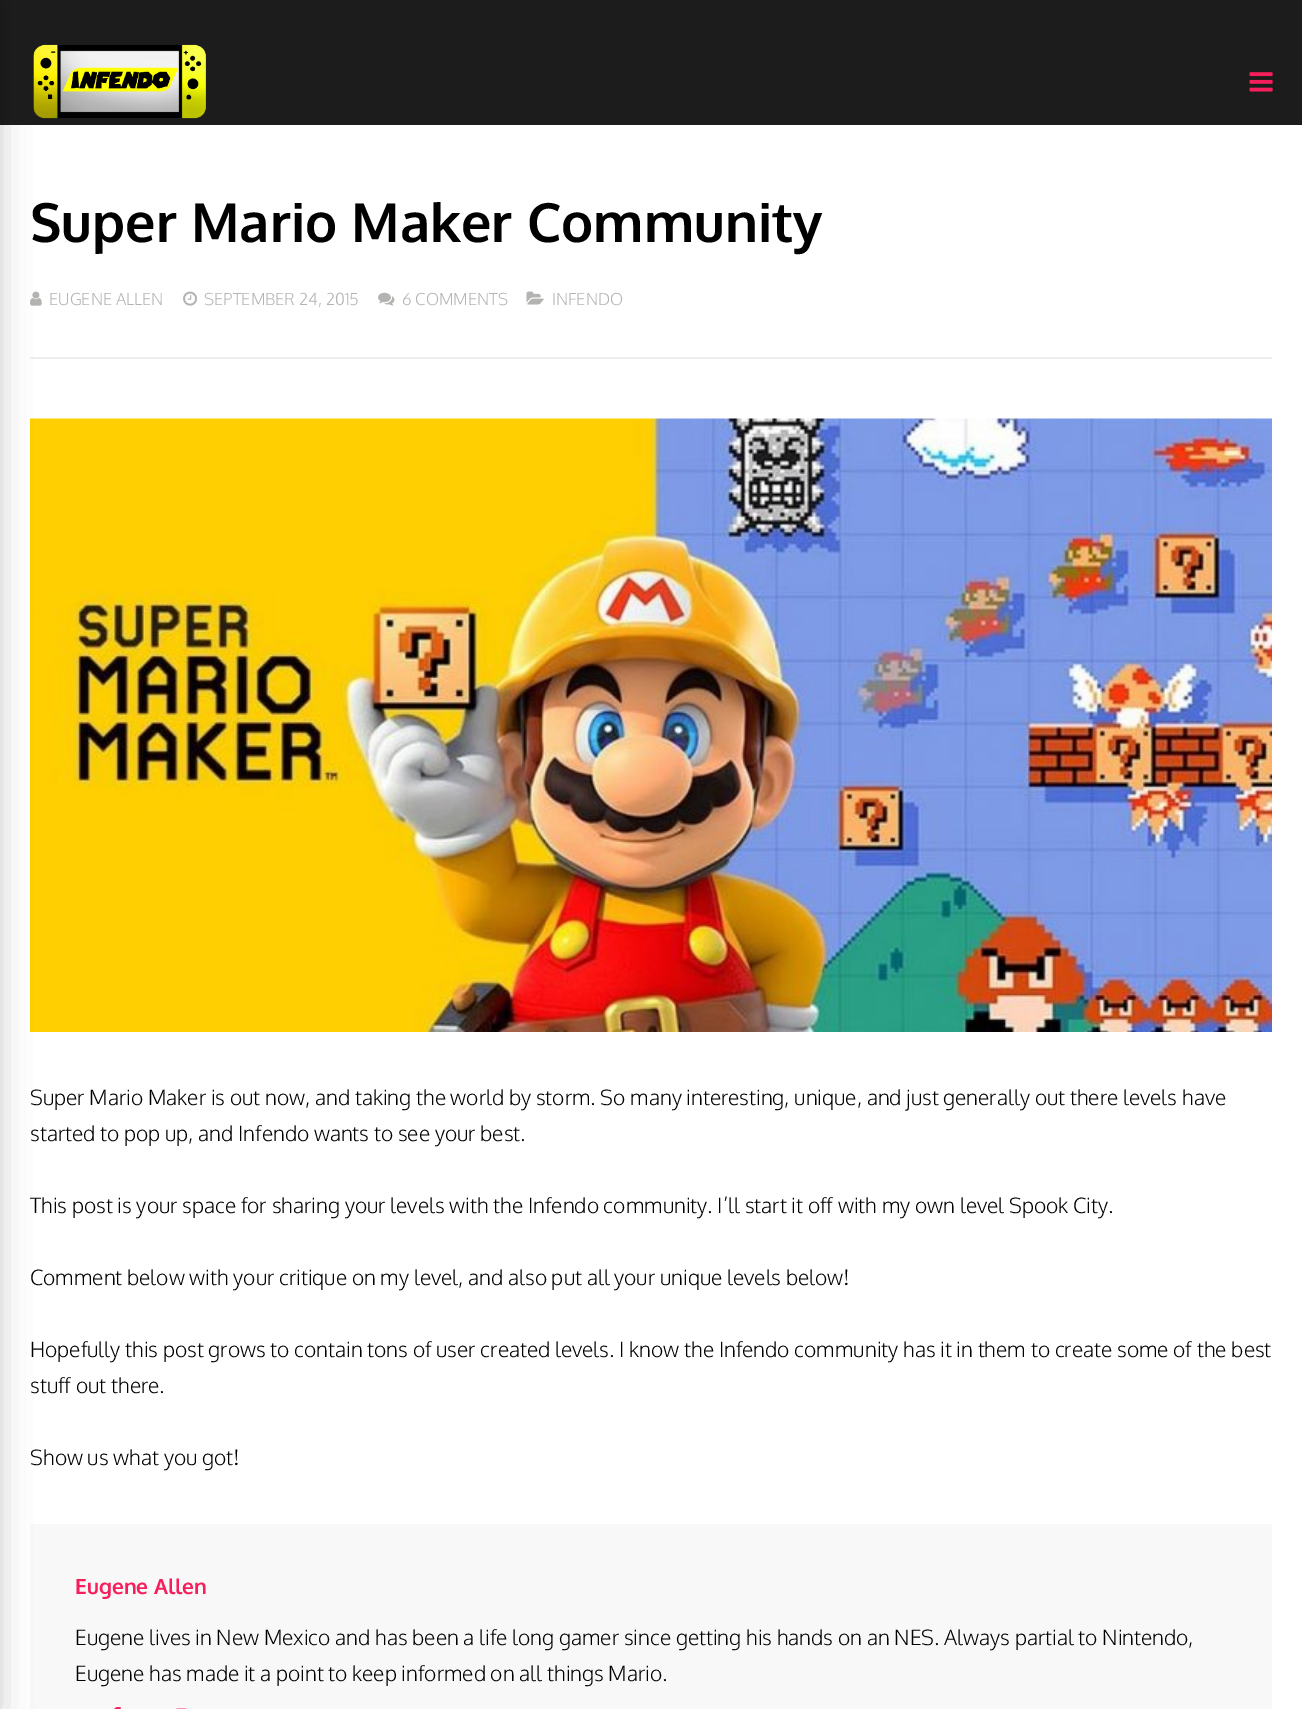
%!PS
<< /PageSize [1302 1709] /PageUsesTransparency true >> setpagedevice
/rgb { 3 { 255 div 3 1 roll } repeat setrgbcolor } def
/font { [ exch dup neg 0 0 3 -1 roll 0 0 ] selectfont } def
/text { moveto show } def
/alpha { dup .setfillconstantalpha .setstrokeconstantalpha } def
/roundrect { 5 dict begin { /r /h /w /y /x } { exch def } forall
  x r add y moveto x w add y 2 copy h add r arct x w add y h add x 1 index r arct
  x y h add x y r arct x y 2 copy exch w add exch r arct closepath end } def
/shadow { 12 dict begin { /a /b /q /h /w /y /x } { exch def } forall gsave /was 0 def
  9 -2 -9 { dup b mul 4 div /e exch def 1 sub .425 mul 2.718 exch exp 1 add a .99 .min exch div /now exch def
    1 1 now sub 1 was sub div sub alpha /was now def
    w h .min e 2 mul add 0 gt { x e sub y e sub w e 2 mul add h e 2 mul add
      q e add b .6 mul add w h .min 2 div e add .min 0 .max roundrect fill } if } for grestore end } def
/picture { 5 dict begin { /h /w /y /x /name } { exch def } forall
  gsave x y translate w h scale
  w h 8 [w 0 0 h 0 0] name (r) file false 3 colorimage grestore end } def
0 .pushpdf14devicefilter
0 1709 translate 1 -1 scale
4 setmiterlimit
255 255 255 rgb
0 0 1302 1709 rectfill
28 28 28 rgb
0 0 1302 125 rectfill
(img_01.rgb) 33 44 173 75 picture
238 238 238 rgb
30 357 1242 2 rectfill
(img_03.rgb) 30 291 12 15 picture
(img_07.rgb) 30 418 1242 614 picture
248 248 248 rgb
30 1524 1242 185 rectfill
0 0 0 rgb
-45 0 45 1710 0 15 0.2 shadow
(img_02.rgb) 1249 72 24 20 picture
(img_04.rgb) 183 291 15 15 picture
(img_05.rgb) 378 292 17 14 picture
(img_06.rgb) 526 291 18 14 picture
(img_08.rgb) 114 1707 7 2 picture
(img_09.rgb) 175 1708 13 1 picture
/Oxygen-Bold 54 font
(Super Mario Maker Community) 30 242 text
/Oxygen-Light 16.5 font
179 179 177 rgb
(EUGENE ALLEN) 49 305 text
(SEPTEMBER 24, 2015) 204 305 text
(6 COMMENTS) 402 305 text
(INFENDO) 552 305 text
/Oxygen-Light 21 font
0 0 0 rgb
(Super Mario Maker is out now, and taking the world by storm. So many interesting, unique, and just generally out there levels have) 30 1105 text
(started to pop up, and Infendo wants to see your best.) 30 1141 text
(This post is your space for sharing your levels with the Infendo community. I’ll start it off with my own level Spook City.) 30 1213 text
(Comment below with your critique on my level, and also put all your unique levels below!) 30 1285 text
(Hopefully this post grows to contain tons of user created levels. I know the Infendo community has it in them to create some of the best) 30 1357 text
(stuff out there.) 30 1393 text
(Show us what you got!) 30 1465 text
/Oxygen-Bold 21 font
246 30 91 rgb
(Eugene Allen) 75 1594 text
/Oxygen-Light 21 font
0 0 0 rgb
(Eugene lives in New Mexico and has been a life long gamer since getting his hands on an NES. Always partial to Nintendo,) 75 1645 text
(Eugene has made it a point to keep informed on all things Mario.) 75 1681 text
.poppdf14devicefilter showpage
